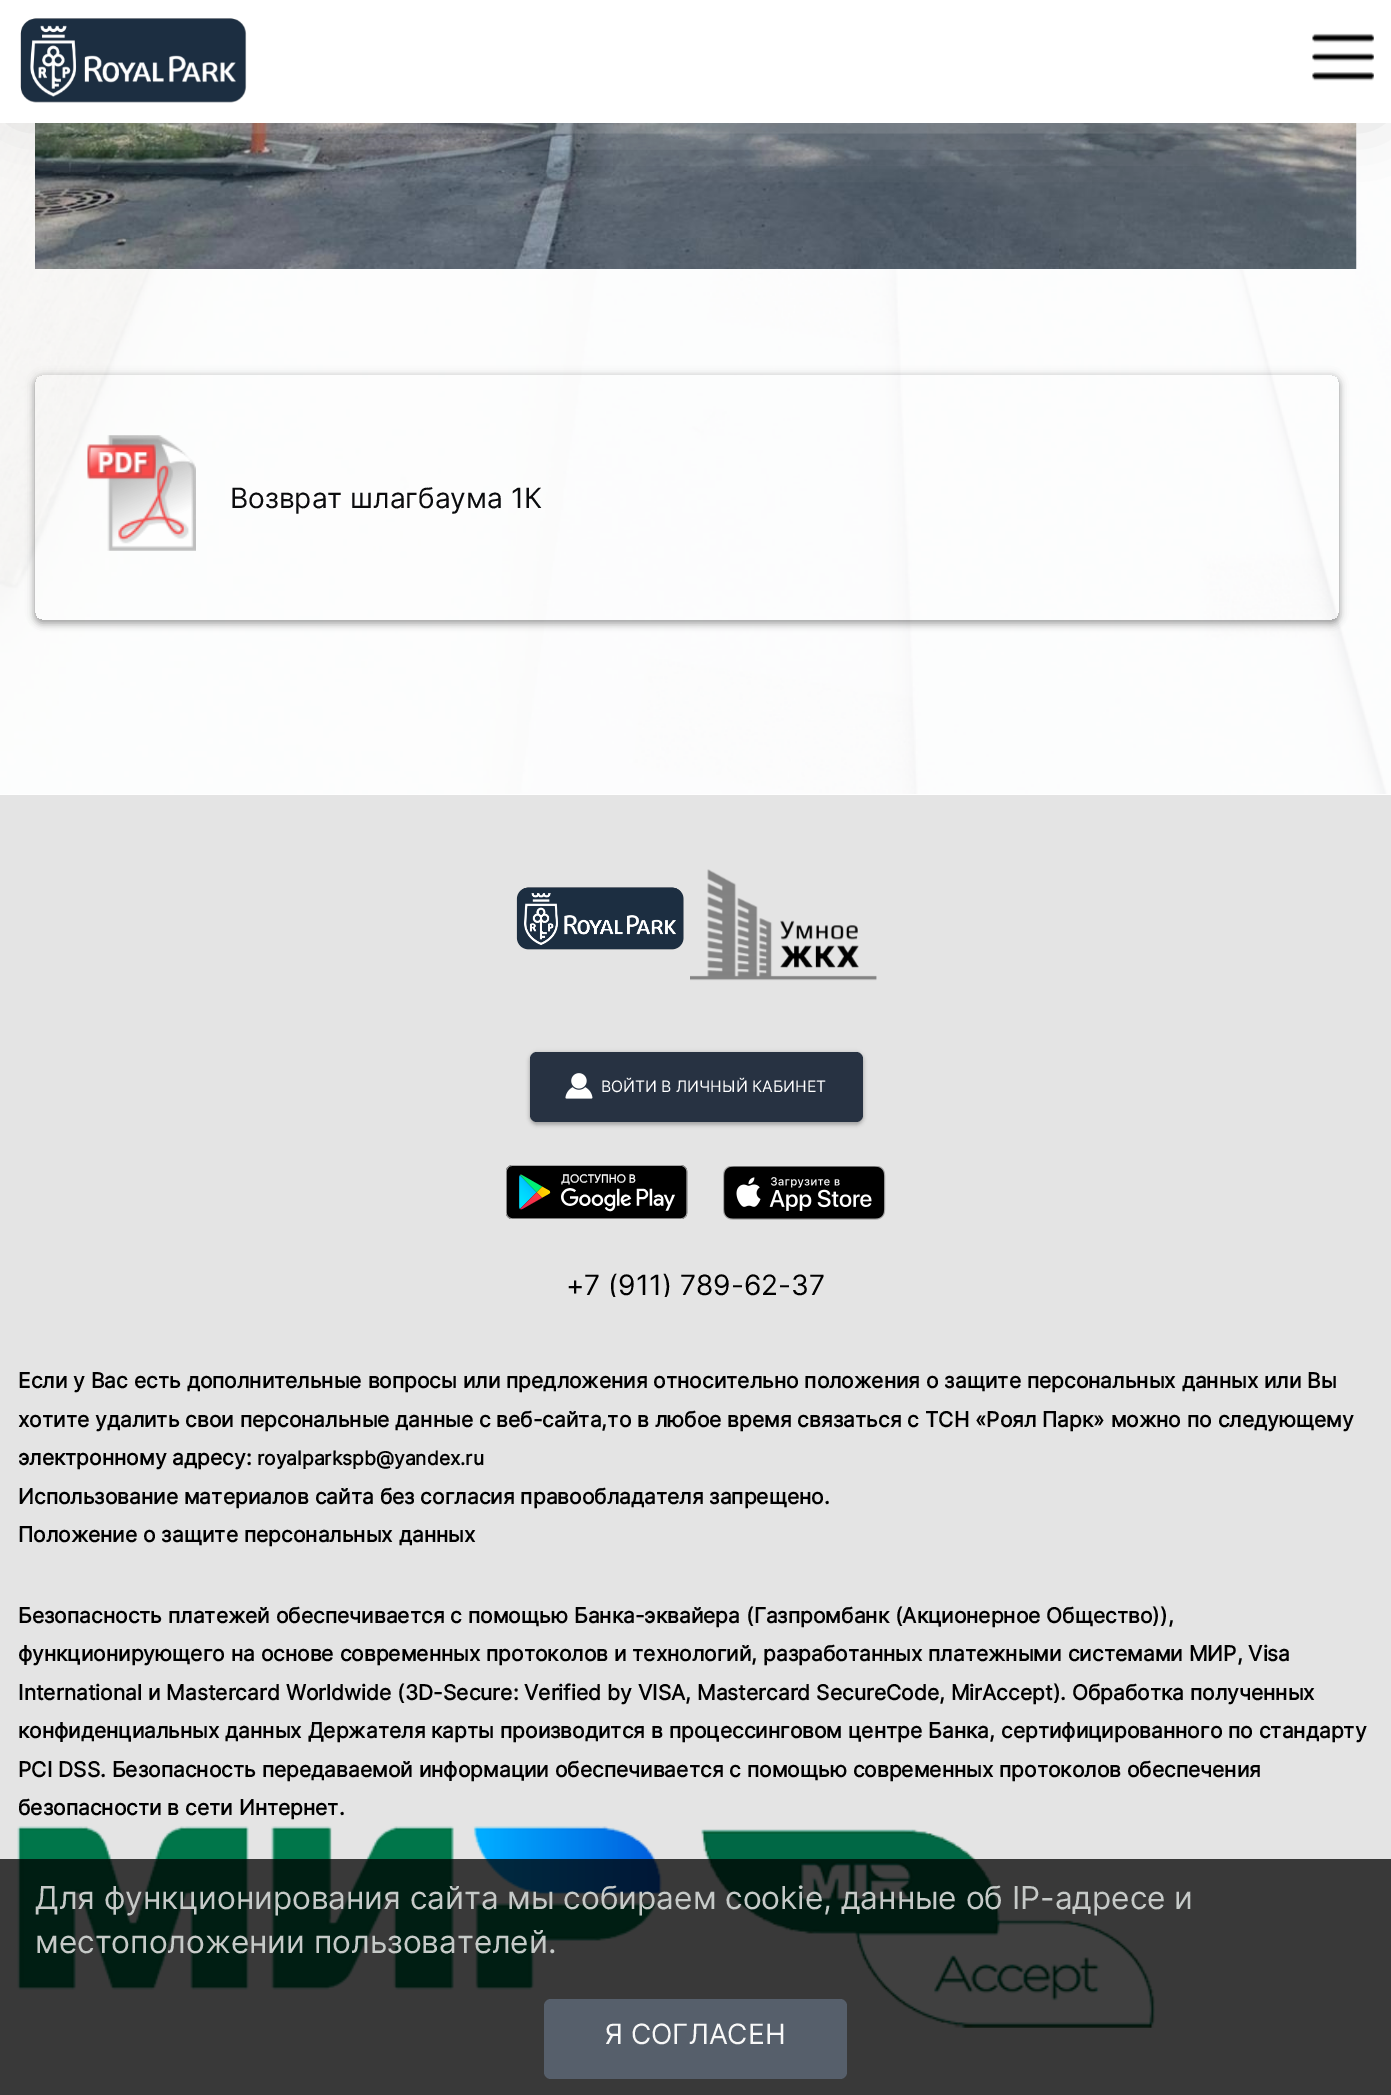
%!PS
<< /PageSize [1391 2095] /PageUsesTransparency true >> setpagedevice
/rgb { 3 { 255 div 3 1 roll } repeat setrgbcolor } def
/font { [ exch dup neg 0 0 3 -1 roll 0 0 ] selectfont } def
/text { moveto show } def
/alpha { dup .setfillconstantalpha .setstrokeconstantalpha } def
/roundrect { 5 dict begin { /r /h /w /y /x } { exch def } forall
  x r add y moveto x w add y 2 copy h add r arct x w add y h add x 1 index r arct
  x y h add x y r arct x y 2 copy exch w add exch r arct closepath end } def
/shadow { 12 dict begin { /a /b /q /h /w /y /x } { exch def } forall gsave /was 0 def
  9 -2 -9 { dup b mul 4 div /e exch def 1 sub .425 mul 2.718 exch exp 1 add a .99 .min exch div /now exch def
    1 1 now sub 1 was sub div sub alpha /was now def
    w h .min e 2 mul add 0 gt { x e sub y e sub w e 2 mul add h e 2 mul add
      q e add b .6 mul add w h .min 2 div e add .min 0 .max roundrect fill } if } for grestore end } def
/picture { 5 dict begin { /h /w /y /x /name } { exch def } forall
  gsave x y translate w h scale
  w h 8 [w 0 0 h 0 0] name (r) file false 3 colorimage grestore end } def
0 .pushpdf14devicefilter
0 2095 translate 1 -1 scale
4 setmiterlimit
255 255 255 rgb
0 0 1391 2095 rectfill
(img_03.rgb) 0 123 1391 671 picture
(img_04.rgb) 35 123 1322 146 picture
204 204 204 rgb
14 14 1363 95 0 32.5 1 shadow
255 255 255 rgb
0 0 1391 123 rectfill
(img_01.rgb) 20 18 227 85 picture
(img_02.rgb) 1312 33 62 48 picture
gsave
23 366 moveto 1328 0 rlineto 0 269 rlineto -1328 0 rlineto closepath 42 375 moveto 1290 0 rlineto 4 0 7 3 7 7 rcurveto 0 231 rlineto 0 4 -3 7 -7 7 rcurveto -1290 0 rlineto -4 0 -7 -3 -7 -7 rcurveto 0 -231 rlineto 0 -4 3 -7 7 -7 rcurveto closepath eoclip newpath
0 0 0 rgb
35 378 1304 245 7 3.5 0.14 shadow
grestore
gsave
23 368 moveto 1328 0 rlineto 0 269 rlineto -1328 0 rlineto closepath 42 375 moveto 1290 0 rlineto 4 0 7 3 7 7 rcurveto 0 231 rlineto 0 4 -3 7 -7 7 rcurveto -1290 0 rlineto -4 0 -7 -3 -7 -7 rcurveto 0 -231 rlineto 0 -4 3 -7 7 -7 rcurveto closepath eoclip newpath
0 0 0 rgb
35 380 1304 245 7 3.5 0.12 shadow
grestore
gsave
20 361 moveto 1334 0 rlineto 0 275 rlineto -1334 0 rlineto closepath 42 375 moveto 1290 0 rlineto 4 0 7 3 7 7 rcurveto 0 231 rlineto 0 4 -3 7 -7 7 rcurveto -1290 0 rlineto -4 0 -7 -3 -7 -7 rcurveto 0 -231 rlineto 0 -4 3 -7 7 -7 rcurveto closepath eoclip newpath
0 0 0 rgb
35 376 1304 245 7 4.5 0.2 shadow
grestore
(img_05.rgb) 87 435 109 116 picture
228 228 228 rgb
0 795 1391 1300 rectfill
(img_06.rgb) 516 887 168 63 picture
(img_07.rgb) 690 869 187 112 picture
0 0 0 rgb
530 1055 333 70 7 2 0.24 shadow
530 1052 333 70 7 2 0.12 shadow
39 50 66 rgb
530 1052 333 70 7 roundrect fill
(img_08.rgb) 565 1073 28 26 picture
(img_09.rgb) 506 1165 182 54 picture
(img_10.rgb) 723 1166 163 54 picture
(img_11.rgb) 17 1826 1138 202 picture
0.75 alpha
0 0 0 rgb
0 1859 1391 236 rectfill
1 alpha
86 95 107 rgb
544 1999 303 80 7 roundrect fill
/Inter-Regular 28 font
11 12 14 rgb
(Возврат шлагбаума 1К) 230 508 text
/Inter-Regular 15.75 font
255 255 255 rgb
(ВОЙТИ В ЛИЧНЫЙ КАБИНЕТ) 601 1092 text
gsave
567 1246 257 51 rectclip
/Inter-Regular 28 font
0 0 0 rgb
(+7 \(911\) 789-62-37) 566 1295 text
grestore
/Inter-Bold 21 font
0 0 0 rgb
(Если у Вас есть дополнительные вопросы или предложения относительно положения о защите персональных данных или Вы) 18 1388 text
(хотите удалить свои персональные данные с веб-сайта,то в любое время связаться с ТСН «Роял Парк» можно по следующему) 18 1427 text
(электронному адресу:) 18 1465 text
/Inter-Bold 19.25 font
(royalparkspb@yandex.ru) 257 1465 text
/Inter-Bold 21 font
(Использование материалов сайта без согласия правообладателя запрещено.) 18 1504 text
(Положение о защите персональных данных) 18 1542 text
(Безопасность платежей обеспечивается с помощью Банка-эквайера \(Газпромбанк \(Акционерное Общество\)\),) 18 1623 text
(функционирующего на основе современных протоколов и технологий, разработанных платежными системами МИР, Visa) 18 1661 text
(International и Mastercard Worldwide \(3D-Secure: Verified by VISA, Mastercard SecureCode, MirAccept\). Обработка полученных) 18 1700 text
(конфиденциальных данных Держателя карты производится в процессинговом центре Банка, сертифицированного по стандарту) 18 1738 text
(PCI DSS. Безопасность передаваемой информации обеспечивается с помощью современных протоколов обеспечения) 18 1777 text
(безопасности в сети Интернет.) 18 1815 text
/Inter-Regular 31.5 font
198 202 200 rgb
(Для функционирования сайта мы собираем cookie, данные об IP-адресе и) 35 1909 text
(местоположении пользователей.) 35 1953 text
/Inter-Regular 28 font
248 248 248 rgb
(Я СОГЛАСЕН) 605 2044 text
.poppdf14devicefilter showpage
